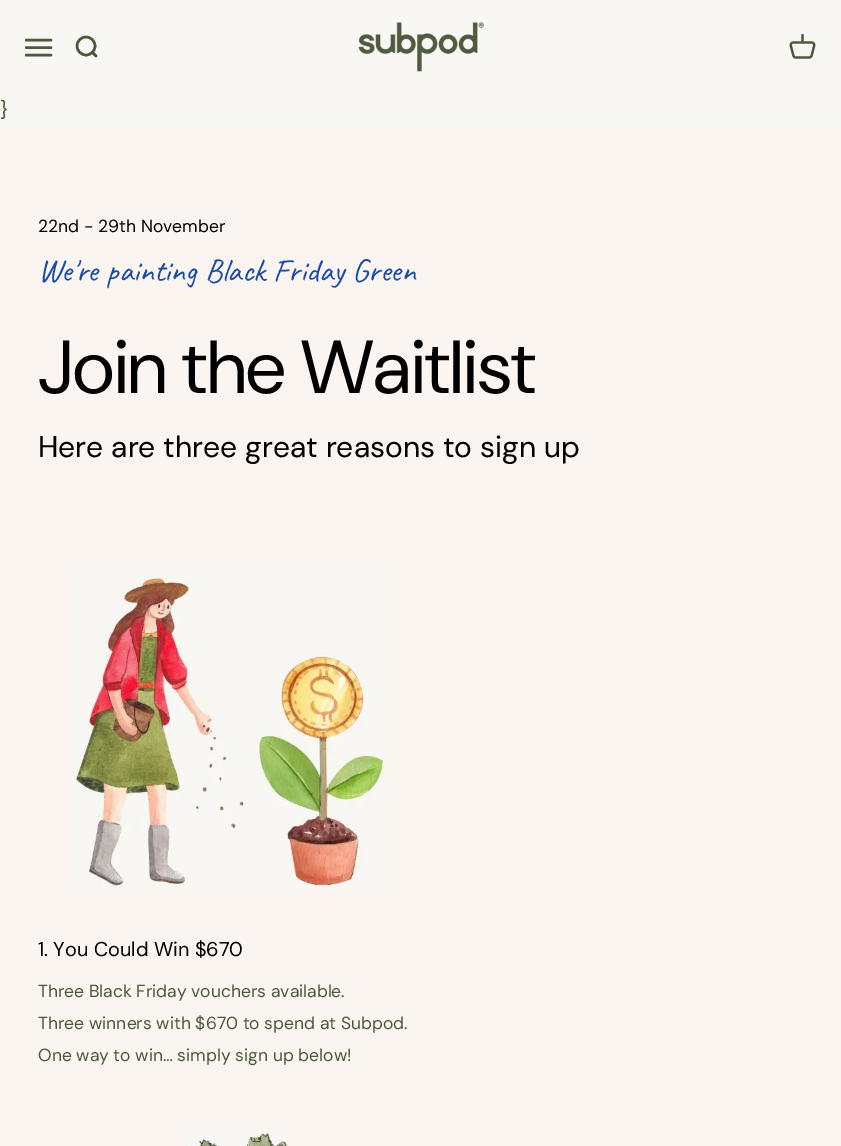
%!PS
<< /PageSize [841 1146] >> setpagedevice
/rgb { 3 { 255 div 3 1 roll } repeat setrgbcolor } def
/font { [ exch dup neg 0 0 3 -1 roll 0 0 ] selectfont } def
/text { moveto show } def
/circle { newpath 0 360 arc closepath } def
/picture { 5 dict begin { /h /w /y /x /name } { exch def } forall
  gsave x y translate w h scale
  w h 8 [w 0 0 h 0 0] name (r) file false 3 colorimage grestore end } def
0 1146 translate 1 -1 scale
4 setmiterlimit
248 247 243 rgb
0 0 841 1146 rectfill
gsave
25 34 28 27 rectclip
76 89 57 rgb
2.5 setlinewidth
1 setlinecap
26 40 moveto 25 0 rlineto 26 47.5 moveto 25 0 rlineto 26 55 moveto 25 0 rlineto stroke
grestore
76 89 57 rgb
2.5 setlinewidth
86 46 9 circle stroke
1 setlinecap
1 setlinejoin
92.5 52.5 moveto 3.5 3.5 rlineto stroke
(img_01.rgb) 358 22 126 50 picture
(img_02.rgb) 789 34 27 25 picture
251 245 241 rgb
0 126 841 1020 rectfill
(img_03.rgb) 73 570 313 319 picture
(img_04.rgb) 186 1129 102 17 picture
/DMSans-Regular 20 font
76 89 57 rgb
(}) 0 116 text
/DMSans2-Regular 17.5 font
0 0 0 rgb
(22nd - 29th November) 38 232 text
/Caveat-Regular 32.5 font
26 75 167 rgb
38 281 moveto 0.5 0 32 (We're painting Black Friday Green) widthshow
/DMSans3-Regular 75 font
0 0 0 rgb
(Join the Waitlist) 38 393 text
/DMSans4-Regular 30 font
(Here are three great reasons to sign up) 38 457 text
/DMSans-Regular 20 font
(1. You Could Win $670) 38 956 text
/DMSans2-Regular 17.5 font
76 89 57 rgb
(Three Black Friday vouchers available.) 38 997 text
(Three winners with $670 to spend at Subpod.) 38 1029 text
(One way to win… simply sign up below!) 38 1061 text
showpage
